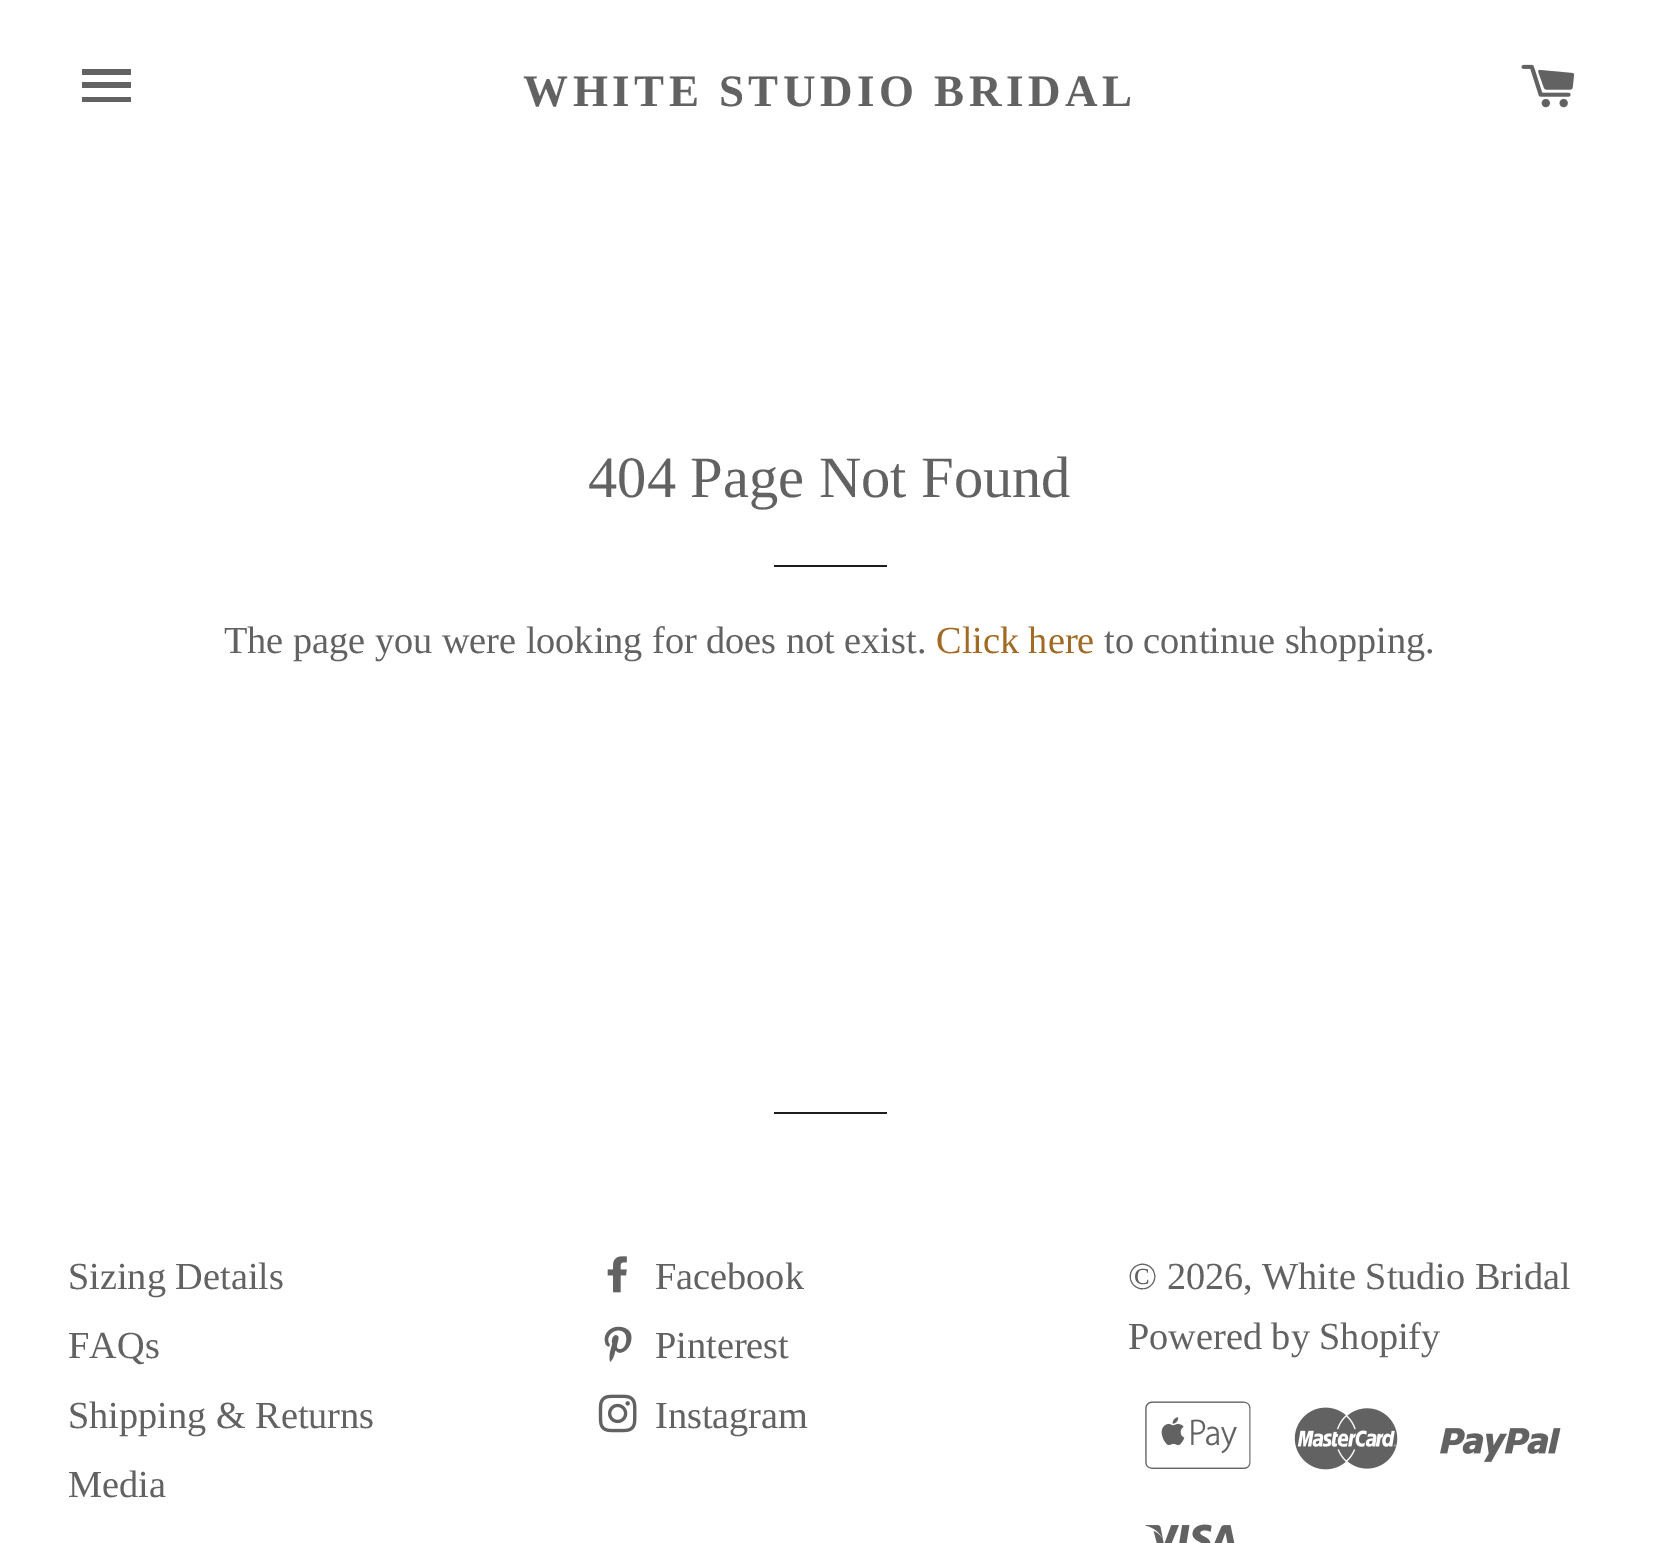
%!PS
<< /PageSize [1658 1543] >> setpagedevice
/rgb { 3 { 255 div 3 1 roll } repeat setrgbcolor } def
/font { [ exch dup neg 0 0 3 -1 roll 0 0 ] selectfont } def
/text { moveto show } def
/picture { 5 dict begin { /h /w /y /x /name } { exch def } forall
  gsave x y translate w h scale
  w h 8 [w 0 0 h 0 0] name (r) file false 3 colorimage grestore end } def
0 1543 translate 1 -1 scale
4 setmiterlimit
255 255 255 rgb
0 0 1658 1543 rectfill
98 98 98 rgb
82 69 moveto 49 0 rlineto 0 6 rlineto -49 0 rlineto closepath 82 82 moveto 49 0 rlineto 0 6 rlineto -49 0 rlineto closepath 82 97 moveto 49 0 rlineto 0 5 rlineto -49 0 rlineto closepath fill
(img_01.rgb) 1521 64 54 44 picture
28 29 29 rgb
774 565 113 2 rectfill
774 1112 113 2 rectfill
(img_02.rgb) 607 1256 20 37 picture
(img_03.rgb) 604 1326 28 36 picture
(img_04.rgb) 598 1394 39 39 picture
(img_05.rgb) 1145 1401 106 68 picture
(img_06.rgb) 1294 1407 104 63 picture
(img_07.rgb) 1440 1428 121 34 picture
(img_08.rgb) 1145 1524 90 19 picture
/LiberationSerif-Bold 45 font
98 98 98 rgb
523 106 moveto 4.5 0 (WHITE STUDIO BRIDAL) ashow
/LiberationSerif-Regular 58.5 font
(404 Page Not Found) 588 497 text
/LiberationSerif-Regular 38.25 font
(The page you were looking for does not exist.) 224 653 text
162 107 37 rgb
(Click here) 936 653 text
98 98 98 rgb
(to continue shopping.) 1104 653 text
(Sizing Details) 68 1289 text
(FAQs) 68 1358 text
(Shipping & Returns) 68 1428 text
(Media) 68 1497 text
(Facebook) 655 1289 text
(Pinterest) 655 1358 text
(Instagram) 655 1428 text
(© 2026, White Studio Bridal) 1128 1289 text
(Powered by Shopify) 1128 1349 text
showpage
